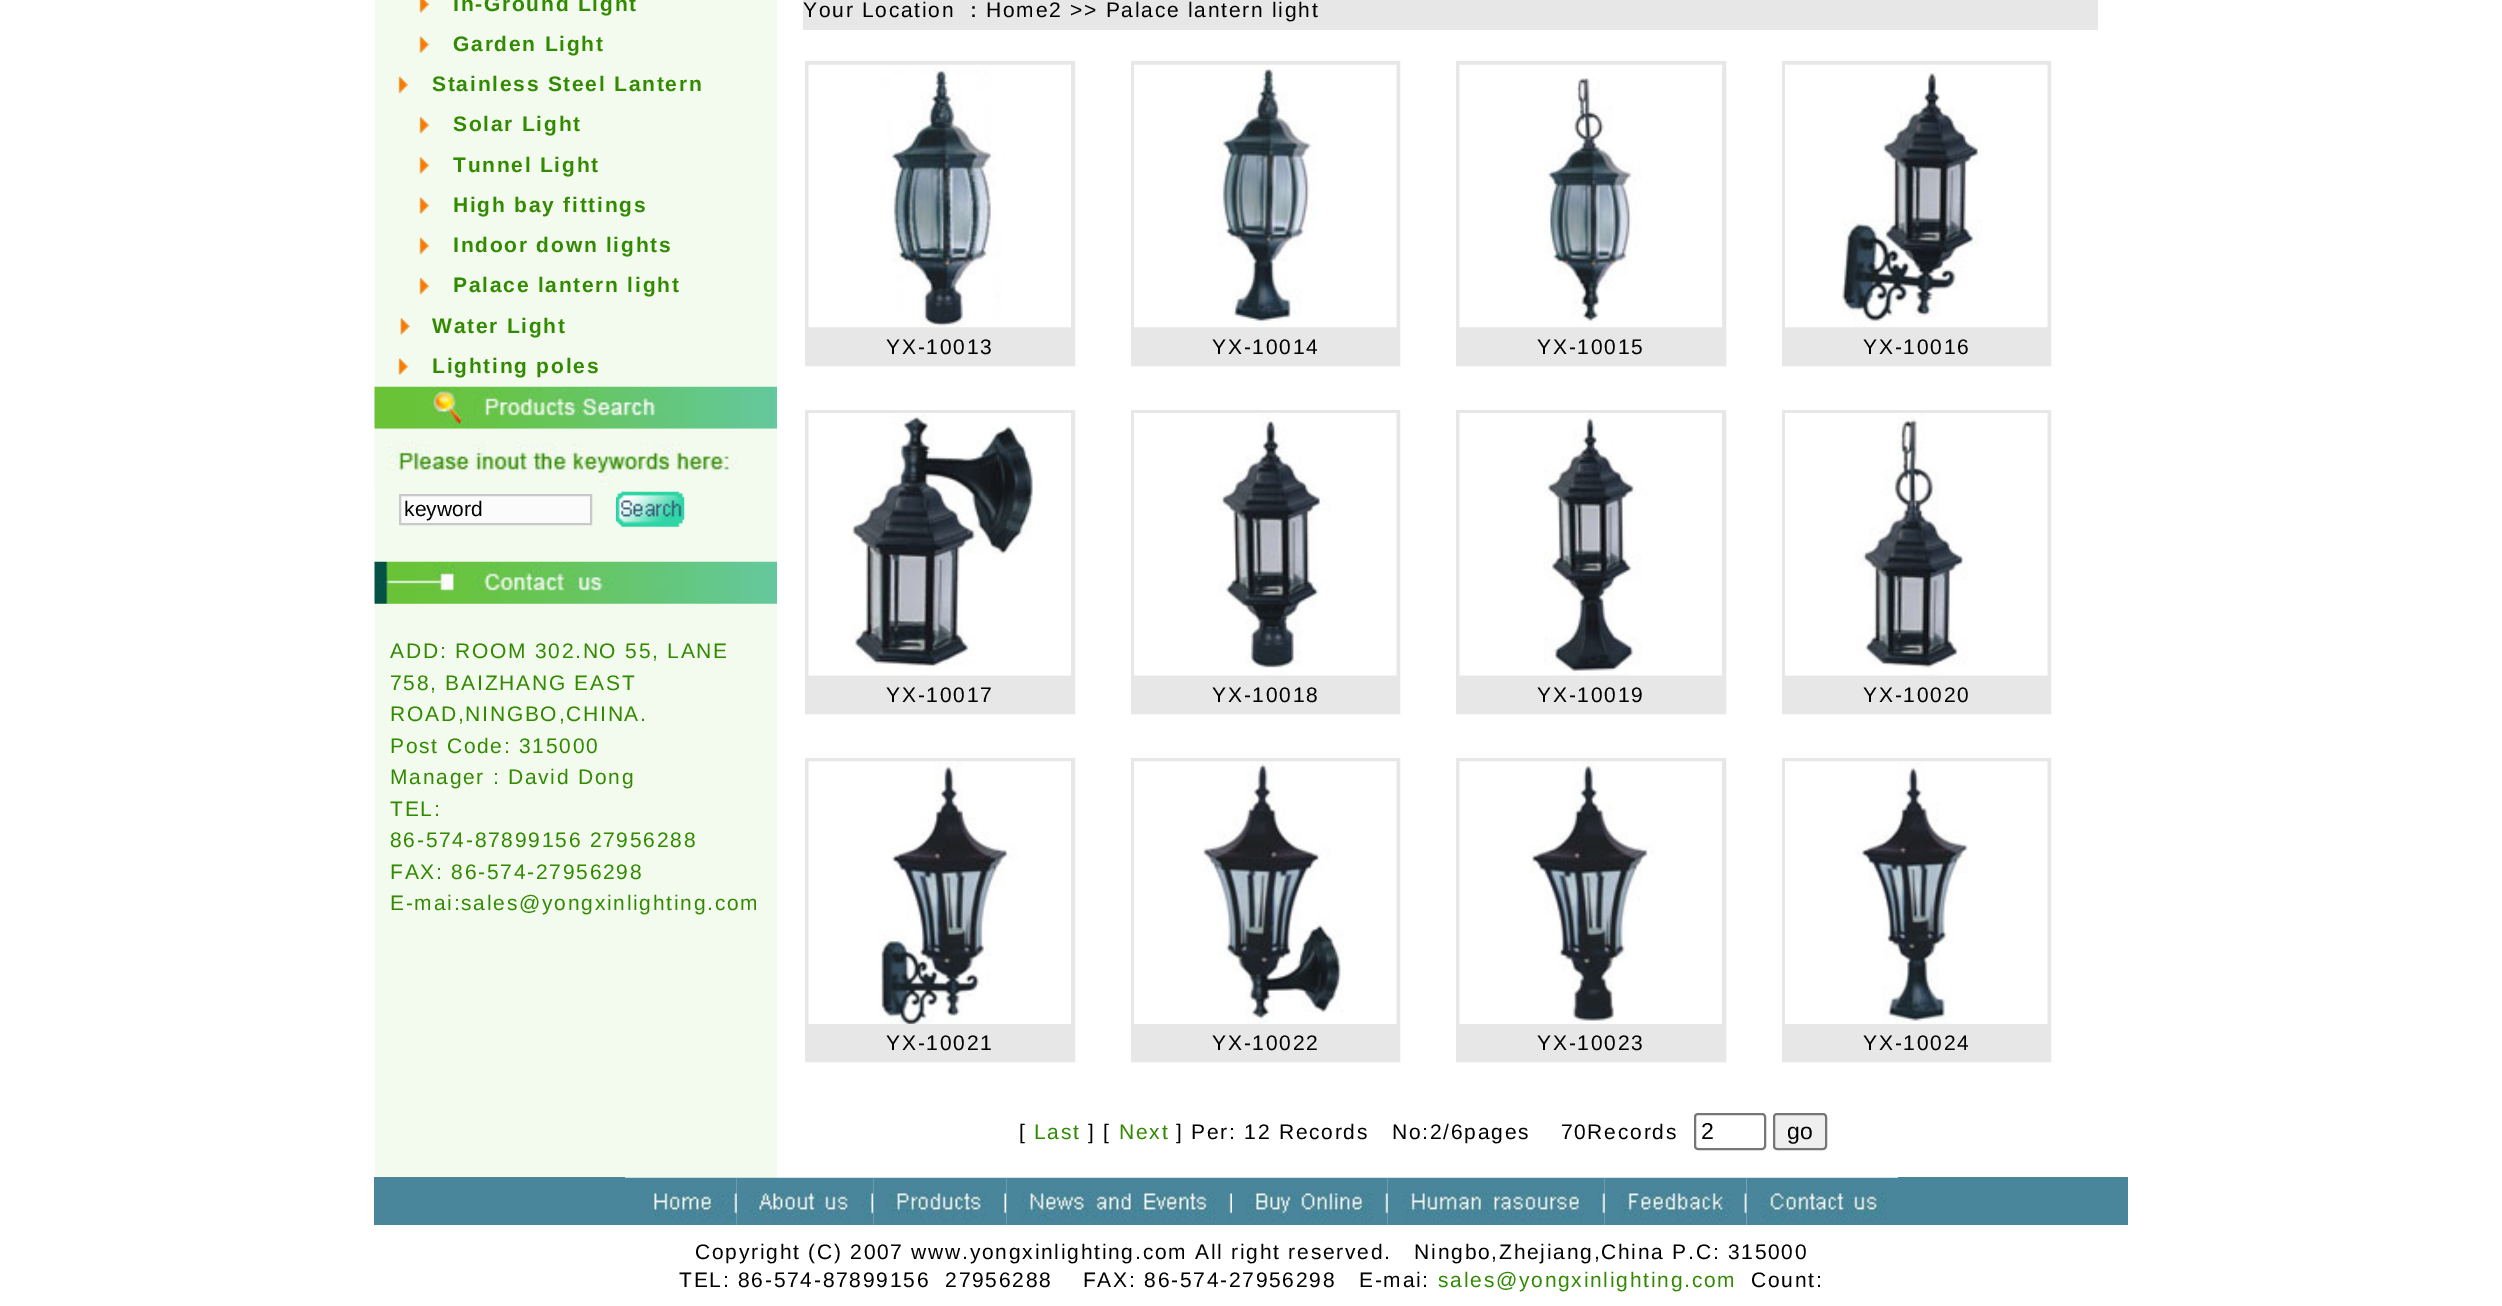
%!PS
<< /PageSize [2502 1306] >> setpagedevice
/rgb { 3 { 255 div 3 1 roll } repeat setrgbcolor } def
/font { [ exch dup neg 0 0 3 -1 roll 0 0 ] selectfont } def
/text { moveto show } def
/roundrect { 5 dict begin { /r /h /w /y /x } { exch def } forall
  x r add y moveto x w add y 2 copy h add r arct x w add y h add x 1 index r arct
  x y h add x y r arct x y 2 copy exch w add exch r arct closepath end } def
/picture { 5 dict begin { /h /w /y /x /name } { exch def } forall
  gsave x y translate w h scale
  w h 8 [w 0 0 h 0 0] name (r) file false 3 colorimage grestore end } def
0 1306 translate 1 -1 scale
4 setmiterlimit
255 255 255 rgb
0 0 2502 1306 rectfill
243 251 238 rgb
375 0 402 1178 rectfill
(img_01.rgb) 419 0 11 13 picture
(img_02.rgb) 419 36 11 17 picture
(img_03.rgb) 398 76 11 18 picture
(img_04.rgb) 419 116 11 18 picture
(img_05.rgb) 419 157 11 17 picture
(img_02.rgb) 419 197 11 17 picture
(img_03.rgb) 419 237 11 18 picture
(img_04.rgb) 419 277 11 18 picture
(img_06.rgb) 400 318 10 17 picture
(img_02.rgb) 398 358 11 17 picture
(img_07.rgb) 374 386 403 43 picture
(img_08.rgb) 374 428 403 64 picture
251 251 251 rgb
400 495 moveto 191 0 rlineto 0 29 rlineto -191 0 rlineto closepath gsave fill grestore
201 201 201 rgb
2 setlinewidth
stroke
(img_09.rgb) 616 491 69 36 picture
(img_10.rgb) 374 561 403 43 picture
231 231 231 rgb
803 0 1295 30 rectfill
806 62 268 303 rectstroke
808 64 264 264 rectstroke
(img_11.rgb) 808 64 263 264 picture
807 329 266 35 rectfill
1132 62 267 303 rectstroke
1133 64 264 264 rectstroke
(img_12.rgb) 1134 64 263 264 picture
1133 329 265 35 rectfill
1457 62 268 303 rectstroke
1459 64 264 264 rectstroke
(img_13.rgb) 1459 64 263 264 picture
1458 329 266 35 rectfill
1783 62 267 303 rectstroke
1784 64 264 264 rectstroke
(img_14.rgb) 1785 64 263 264 picture
1784 329 265 35 rectfill
806 411 268 302 rectstroke
808 412 264 264 rectstroke
(img_15.rgb) 808 413 263 263 picture
807 677 266 35 rectfill
1132 411 267 302 rectstroke
1133 412 264 264 rectstroke
(img_16.rgb) 1134 413 263 263 picture
1133 677 265 35 rectfill
1457 411 268 302 rectstroke
1459 412 264 264 rectstroke
(img_17.rgb) 1459 413 263 263 picture
1458 677 266 35 rectfill
1783 411 267 302 rectstroke
1784 412 264 264 rectstroke
(img_18.rgb) 1785 413 263 263 picture
1784 677 265 35 rectfill
806 759 268 302 rectstroke
808 761 264 264 rectstroke
(img_19.rgb) 808 761 263 263 picture
807 1026 266 34 rectfill
1132 759 267 302 rectstroke
1133 761 264 264 rectstroke
(img_20.rgb) 1134 761 263 263 picture
1133 1026 265 34 rectfill
1457 759 268 302 rectstroke
1459 761 264 264 rectstroke
(img_21.rgb) 1459 761 263 263 picture
1458 1026 266 34 rectfill
1783 759 267 302 rectstroke
1784 761 264 264 rectstroke
(img_22.rgb) 1785 761 263 263 picture
1784 1026 265 34 rectfill
118 118 118 rgb
1695 1114 70 35 3 roundrect stroke
239 239 239 rgb
1774 1114 52 35 3 roundrect gsave fill grestore
118 118 118 rgb
stroke
73 134 155 rgb
374 1177 251 48 rectfill
(img_23.rgb) 625 1177 112 48 picture
(img_24.rgb) 736 1177 138 48 picture
(img_25.rgb) 873 1177 134 48 picture
(img_26.rgb) 1006 1177 226 48 picture
(img_27.rgb) 1232 1177 156 48 picture
(img_28.rgb) 1387 1177 218 48 picture
(img_29.rgb) 1604 1177 143 48 picture
(img_30.rgb) 1746 1177 152 48 picture
1898 1177 230 48 rectfill
/LiberationSans-Bold 21 font
49 138 0 rgb
453 11 moveto 1.75 0 (In-Ground Light) ashow
453 51 moveto 1.75 0 (Garden Light) ashow
432 91 moveto 1.75 0 (Stainless Steel Lantern) ashow
453 131 moveto 1.75 0 (Solar Light) ashow
453 172 moveto 1.75 0 (Tunnel Light) ashow
453 212 moveto 1.75 0 (High bay fittings) ashow
453 252 moveto 1.75 0 (Indoor down lights) ashow
453 292 moveto 1.75 0 (Palace lantern light) ashow
432 333 moveto 1.75 0 (Water Light) ashow
432 373 moveto 1.75 0 (Lighting poles) ashow
/LiberationSans-Regular 21 font
0 0 0 rgb
(keyword) 404 516 text
49 138 0 rgb
390 658 moveto 1.75 0 (ADD: ROOM 302.NO 55, LANE) ashow
390 690 moveto 1.75 0 (758, BAIZHANG EAST) ashow
390 721 moveto 1.75 0 (ROAD,NINGBO,CHINA.) ashow
390 753 moveto 1.75 0 (Post Code: 315000) ashow
390 784 moveto 1.75 0 (Manager : David Dong) ashow
390 816 moveto 1.75 0 (TEL:) ashow
390 847 moveto 1.75 0 (86-574-87899156 27956288) ashow
390 879 moveto 1.75 0 (FAX: 86-574-27956298) ashow
390 910 moveto 1.75 0 (E-mai:sales@yongxinlighting.com) ashow
0 0 0 rgb
803 17 moveto 1.75 0 (Your Location) ashow
/WenQuanYiZenHei-Medium 21 font
963 17 moveto 1.75 0 (：) ashow
/LiberationSans-Regular 21 font
986 17 moveto 1.75 0 (Home2 >> Palace lantern light) ashow
886 354 moveto 1.75 0 (YX-10013) ashow
1212 354 moveto 1.75 0 (YX-10014) ashow
1537 354 moveto 1.75 0 (YX-10015) ashow
1863 354 moveto 1.75 0 (YX-10016) ashow
886 702 moveto 1.75 0 (YX-10017) ashow
1212 702 moveto 1.75 0 (YX-10018) ashow
1537 702 moveto 1.75 0 (YX-10019) ashow
1863 702 moveto 1.75 0 (YX-10020) ashow
886 1050 moveto 1.75 0 (YX-10021) ashow
1212 1050 moveto 1.75 0 (YX-10022) ashow
1537 1050 moveto 1.75 0 (YX-10023) ashow
1863 1050 moveto 1.75 0 (YX-10024) ashow
1019 1139 moveto 1.75 0 ([) ashow
49 138 0 rgb
1034 1139 moveto 1.75 0 (Last) ashow
0 0 0 rgb
1088 1139 moveto 1.75 0 (] [) ashow
49 138 0 rgb
1119 1139 moveto 1.75 0 (Next) ashow
0 0 0 rgb
1176 1139 moveto 1.75 0 (] Per: 12 Records) ashow
1392 1139 moveto 1.75 0 (No:2/6pages    70Records) ashow
/LiberationSans-Regular 23 font
(2) 1701 1139 text
(go) 1787 1139 text
/LiberationSans-Regular 21 font
695 1259 moveto 1.75 0 (Copyright \(C\) 2007 www.yongxinlighting.com All right reserved.   Ningbo,Zhejiang,China P.C: 315000) ashow
679 1287 moveto 1.75 0 (TEL: 86-574-87899156  27956288    FAX: 86-574-27956298   E-mai:) ashow
49 138 0 rgb
1438 1287 moveto 1.75 0 (sales@yongxinlighting.com) ashow
0 0 0 rgb
1751 1287 moveto 1.75 0 (Count:) ashow
showpage
